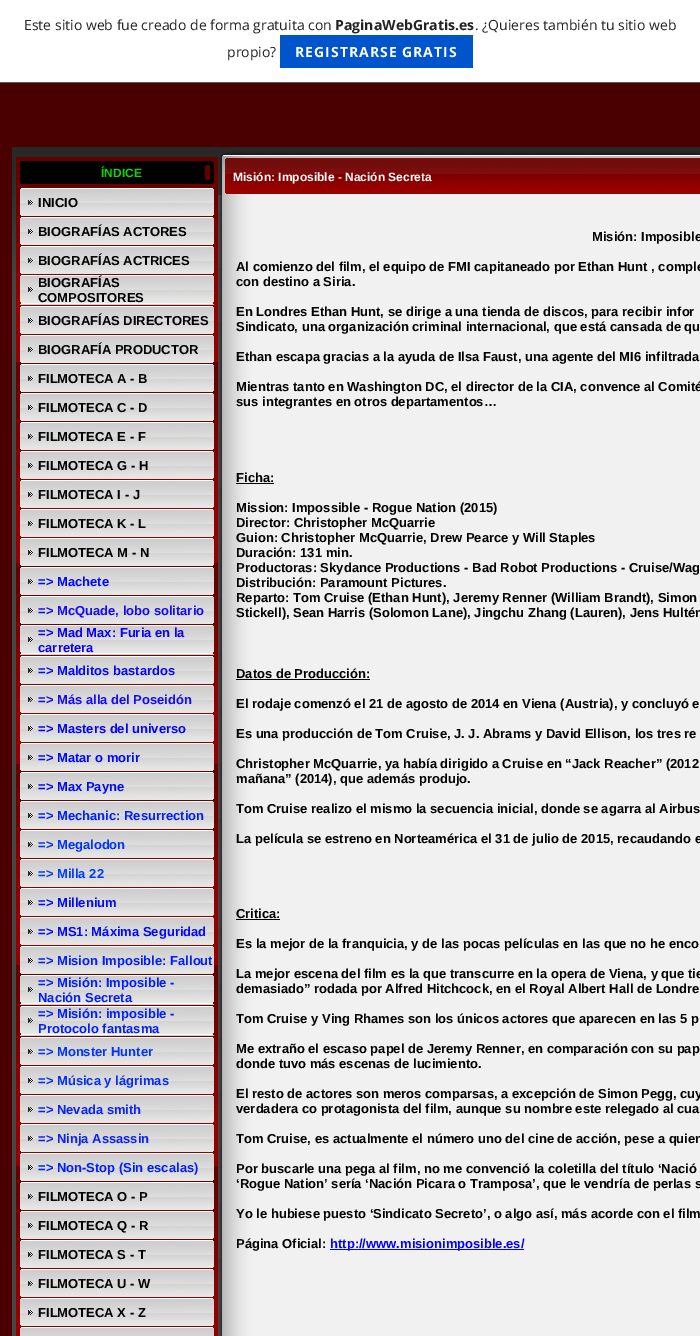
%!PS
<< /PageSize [700 1336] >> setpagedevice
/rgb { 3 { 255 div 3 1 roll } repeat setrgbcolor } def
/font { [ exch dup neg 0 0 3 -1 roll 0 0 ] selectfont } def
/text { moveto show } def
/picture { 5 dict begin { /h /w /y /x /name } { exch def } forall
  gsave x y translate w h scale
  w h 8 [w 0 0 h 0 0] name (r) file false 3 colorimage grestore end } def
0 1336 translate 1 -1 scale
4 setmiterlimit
74 0 1 rgb
0 0 700 1336 rectfill
255 255 255 rgb
0 0 700 82 rectfill
90 90 90 rgb
0 82 700 1 rectfill
0 85 204 rgb
280 35 193 33 rectfill
(img_01.rgb) 12 147 206 1189 picture
100 0 0 rgb
16 157 202 4 rectfill
(img_02.rgb) 16 161 202 1175 picture
(img_03.rgb) 20 161 194 23 picture
(img_04.rgb) 20 188 194 28 picture
(img_05.rgb) 20 217 194 28 picture
(img_06.rgb) 20 246 194 28 picture
(img_07.rgb) 20 275 194 30 picture
(img_08.rgb) 20 306 194 28 picture
(img_09.rgb) 20 335 194 28 picture
(img_10.rgb) 20 364 194 28 picture
(img_11.rgb) 20 393 194 28 picture
(img_12.rgb) 20 422 194 28 picture
(img_13.rgb) 20 451 194 28 picture
(img_14.rgb) 20 480 194 28 picture
(img_15.rgb) 20 509 194 28 picture
(img_09.rgb) 20 538 194 28 picture
(img_16.rgb) 20 567 194 28 picture
(img_17.rgb) 20 596 194 28 picture
(img_18.rgb) 20 625 194 30 picture
(img_19.rgb) 20 656 194 28 picture
(img_20.rgb) 20 685 194 28 picture
(img_21.rgb) 20 714 194 28 picture
(img_22.rgb) 20 743 194 28 picture
(img_23.rgb) 20 772 194 28 picture
(img_24.rgb) 20 801 194 28 picture
(img_25.rgb) 20 830 194 28 picture
(img_26.rgb) 20 859 194 28 picture
(img_27.rgb) 20 888 194 28 picture
(img_21.rgb) 20 917 194 28 picture
(img_28.rgb) 20 946 194 28 picture
(img_29.rgb) 20 975 194 30 picture
(img_30.rgb) 20 1006 194 30 picture
(img_31.rgb) 20 1037 194 28 picture
(img_32.rgb) 20 1066 194 28 picture
(img_33.rgb) 20 1095 194 28 picture
(img_21.rgb) 20 1124 194 28 picture
(img_34.rgb) 20 1153 194 28 picture
(img_35.rgb) 20 1182 194 28 picture
(img_36.rgb) 20 1211 194 28 picture
(img_37.rgb) 20 1240 194 28 picture
(img_38.rgb) 20 1269 194 28 picture
(img_33.rgb) 20 1298 194 28 picture
(img_39.rgb) 20 1327 194 9 picture
(img_40.rgb) 218 147 482 11 picture
(img_41.rgb) 220 152 480 6 picture
(img_42.rgb) 218 195 482 1141 picture
(img_43.rgb) 218 158 482 37 picture
0 0 0 rgb
236 483 38 1 rectfill
236 679 134 1 rectfill
236 919 44 1 rectfill
0 0 255 rgb
330 1249 194 1 rectfill
/OpenSans-Regular 14 font
35 35 35 rgb
(Este sitio web fue creado de forma gratuita con) 24 30 text
/OpenSans-Bold 14 font
(PaginaWebGratis.es) 335 30 text
/OpenSans-Regular 14 font
(. ¿Quieres también tu sitio web) 475 30 text
(propio?) 227 57 text
/OpenSans-Bold 14 font
255 255 255 rgb
295 57 moveto 1 0 (REGISTRARSE GRATIS) ashow
/LiberationSans-Bold 12 font
15 215 0 rgb
(ÍNDICE) 101 177 text
/LiberationSans-Bold 13 font
0 0 0 rgb
(INICIO) 38 207 text
(BIOGRAFÍAS ACTORES) 38 236 text
(BIOGRAFÍAS ACTRICES) 38 265 text
(BIOGRAFÍAS) 38 287 text
(COMPOSITORES) 38 302 text
(BIOGRAFÍAS DIRECTORES) 38 325 text
(BIOGRAFÍA PRODUCTOR) 38 354 text
(FILMOTECA A - B) 38 383 text
(FILMOTECA C - D) 38 412 text
(FILMOTECA E - F) 38 441 text
(FILMOTECA G - H) 38 470 text
(FILMOTECA I - J) 38 499 text
(FILMOTECA K - L) 38 528 text
(FILMOTECA M - N) 38 557 text
0 8 255 rgb
(=> Machete) 38 586 text
18 10 253 rgb
(=> McQuade, lobo solitario) 38 615 text
8 0 255 rgb
(=> Mad Max: Furia en la) 38 637 text
(carretera) 38 652 text
0 8 255 rgb
(=> Malditos bastardos) 38 675 text
18 10 253 rgb
(=> Más alla del Poseidón) 38 704 text
2 2 255 rgb
(=> Masters del universo) 38 733 text
0 8 255 rgb
(=> Matar o morir) 38 762 text
(=> Max Payne) 38 791 text
0 30 255 rgb
(=> Mechanic: Resurrection) 38 820 text
0 51 255 rgb
(=> Megalodon) 38 849 text
0 60 255 rgb
(=> Milla 22) 38 878 text
0 8 255 rgb
(=> Millenium) 38 907 text
(=> MS1: Máxima Seguridad) 38 936 text
0 30 255 rgb
(=> Mision Imposible: Fallout) 38 965 text
(=> Misión: Imposible -) 38 987 text
(Nación Secreta) 38 1002 text
(=> Misión: imposible -) 38 1018 text
(Protocolo fantasma) 38 1033 text
0 51 255 rgb
(=> Monster Hunter) 38 1056 text
3 45 255 rgb
(=> Música y lágrimas) 38 1085 text
12 32 252 rgb
(=> Nevada smith) 38 1114 text
(=> Ninja Assassin) 38 1143 text
0 30 255 rgb
(=> Non-Stop \(Sin escalas\)) 38 1172 text
0 0 0 rgb
(FILMOTECA O - P) 38 1201 text
(FILMOTECA Q - R) 38 1230 text
(FILMOTECA S - T) 38 1259 text
(FILMOTECA U - W) 38 1288 text
(FILMOTECA X - Z) 38 1317 text
/LiberationSans-Bold 12 font
255 255 255 rgb
(Misión: Imposible - Nación Secreta) 233 181 text
/LiberationSans-Bold 13 font
0 0 0 rgb
(Misión: Imposible) 592 241 text
(Al comienzo del film, el equipo de FMI capitaneado por Ethan Hunt , comple) 236 271 text
(con destino a Siria.) 236 286 text
(En Londres Ethan Hunt, se dirige a una tienda de discos, para recibir infor) 236 316 text
(Sindicato, una organización criminal internacional, que está cansada de qu) 236 331 text
(Ethan escapa gracias a la ayuda de Ilsa Faust, una agente del MI6 infiltrada) 236 361 text
(Mientras tanto en Washington DC, el director de la CIA, convence al Comité) 236 391 text
(sus integrantes en otros departamentos…) 236 406 text
(Ficha:) 236 482 text
(Mission: Impossible - Rogue Nation \(2015\)) 236 512 text
(Director: Christopher McQuarrie) 236 527 text
(Guion: Christopher McQuarrie, Drew Pearce y Will Staples) 236 542 text
(Duración: 131 min.) 236 557 text
(Productoras: Skydance Productions - Bad Robot Productions - Cruise/Wag) 236 572 text
(Distribución: Paramount Pictures.) 236 587 text
(Reparto: Tom Cruise \(Ethan Hunt\), Jeremy Renner \(William Brandt\), Simon) 236 602 text
(Stickell\), Sean Harris \(Solomon Lane\), Jingchu Zhang \(Lauren\), Jens Hultén) 236 617 text
(Datos de Producción:) 236 678 text
(El rodaje comenzó el 21 de agosto de 2014 en Viena \(Austria\), y concluyó e) 236 708 text
(Es una producción de Tom Cruise, J. J. Abrams y David Ellison, los tres re) 236 738 text
(Christopher McQuarrie, ya había dirigido a Cruise en “Jack Reacher” \(2012) 236 768 text
(mañana” \(2014\), que además produjo.) 236 783 text
(Tom Cruise realizo el mismo la secuencia inicial, donde se agarra al Airbus) 236 813 text
(La película se estreno en Norteamérica el 31 de julio de 2015, recaudando e) 236 843 text
(Critica:) 236 918 text
(Es la mejor de la franquicia, y de las pocas películas en las que no he enco) 236 948 text
(La mejor escena del film es la que transcurre en la opera de Viena, y que tie) 236 978 text
(demasiado” rodada por Alfred Hitchcock, en el Royal Albert Hall de Londre) 236 993 text
(Tom Cruise y Ving Rhames son los únicos actores que aparecen en las 5 p) 236 1023 text
(Me extraño el escaso papel de Jeremy Renner, en comparación con su pap) 236 1053 text
(donde tuvo más escenas de lucimiento.) 236 1068 text
(El resto de actores son meros comparsas, a excepción de Simon Pegg, cuy) 236 1098 text
(verdadera co protagonista del film, aunque su nombre este relegado al cua) 236 1113 text
(Tom Cruise, es actualmente el número uno del cine de acción, pese a quien) 236 1143 text
(Por buscarle una pega al film, no me convenció la coletilla del título ‘Nació) 236 1173 text
(‘Rogue Nation’ sería ‘Nación Picara o Tramposa’, que le vendría de perlas s) 236 1188 text
(Yo le hubiese puesto ‘Sindicato Secreto’, o algo así, más acorde con el film) 236 1218 text
(Página Oficial:) 236 1248 text
2 2 255 rgb
(http://www.misionimposible.es/) 330 1248 text
showpage
